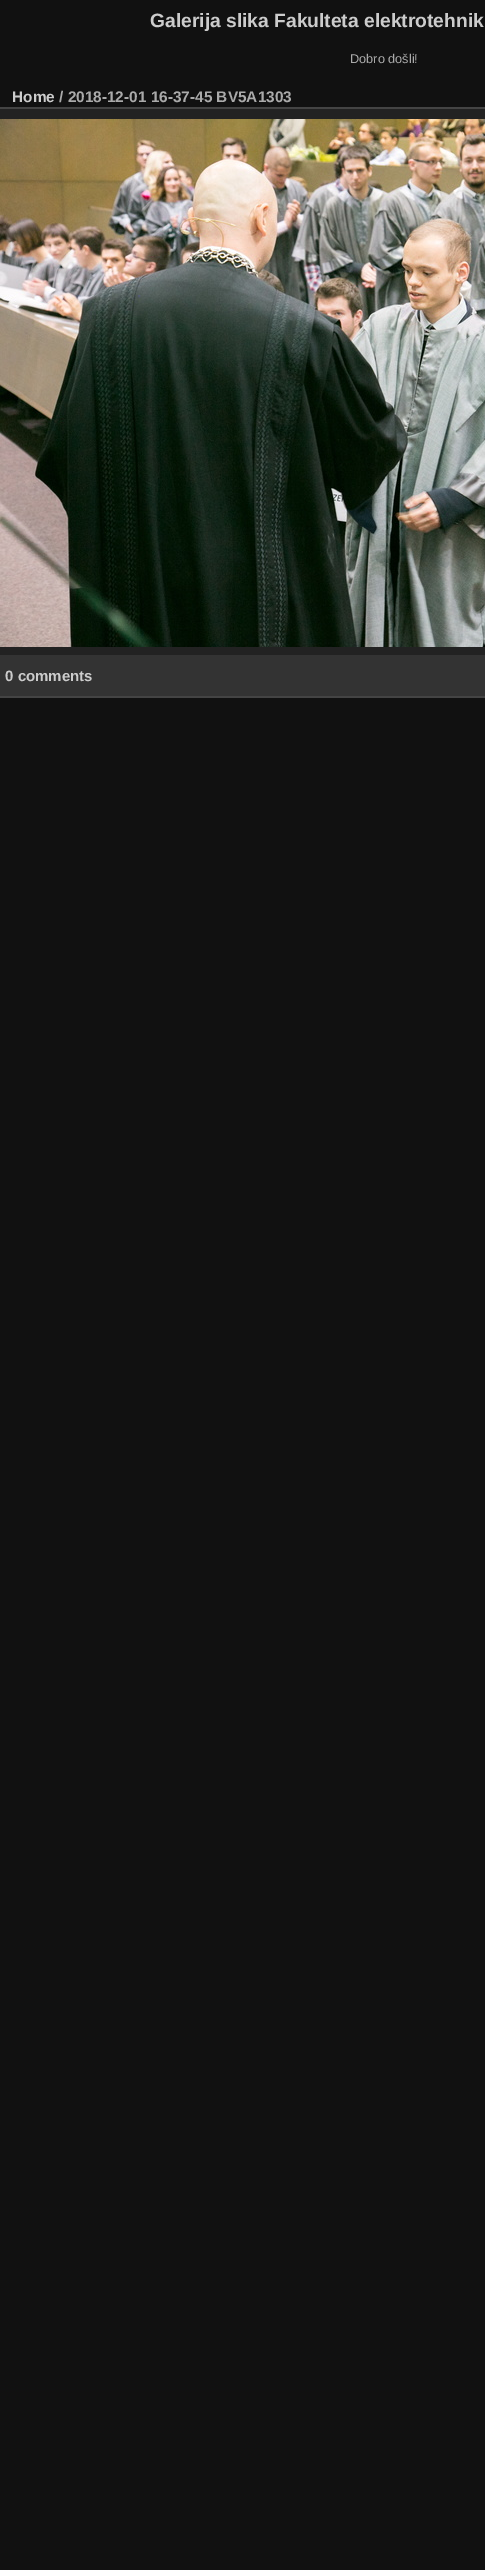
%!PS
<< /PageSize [485 2570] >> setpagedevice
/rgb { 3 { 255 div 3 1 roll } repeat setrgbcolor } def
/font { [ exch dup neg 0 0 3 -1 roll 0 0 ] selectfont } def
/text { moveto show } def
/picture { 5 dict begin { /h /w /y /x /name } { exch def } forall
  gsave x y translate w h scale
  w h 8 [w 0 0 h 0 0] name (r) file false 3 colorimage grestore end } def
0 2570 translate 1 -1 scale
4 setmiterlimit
17 17 17 rgb
0 0 485 2570 rectfill
34 34 34 rgb
0 109 485 546 rectfill
68 68 68 rgb
0 696 485 2 rectfill
0 107 485 2 rectfill
(img_01.rgb) 0 119 485 528 picture
51 51 51 rgb
0 655 485 41 rectfill
/LiberationSans-Bold 19.25 font
204 204 204 rgb
(Galerija slika Fakulteta elektrotehnik) 150 27 text
/LiberationSans-Regular 12.75 font
170 170 170 rgb
(Dobro došli!) 350 63 text
/LiberationSans-Bold 15.4 font
204 204 204 rgb
(Home) 12 102 text
170 170 170 rgb
(/ 2018-12-01 16-37-45 BV5A1303) 59 102 text
/LiberationSans-Bold 15 font
204 204 204 rgb
(0 comments) 5 681 text
showpage
